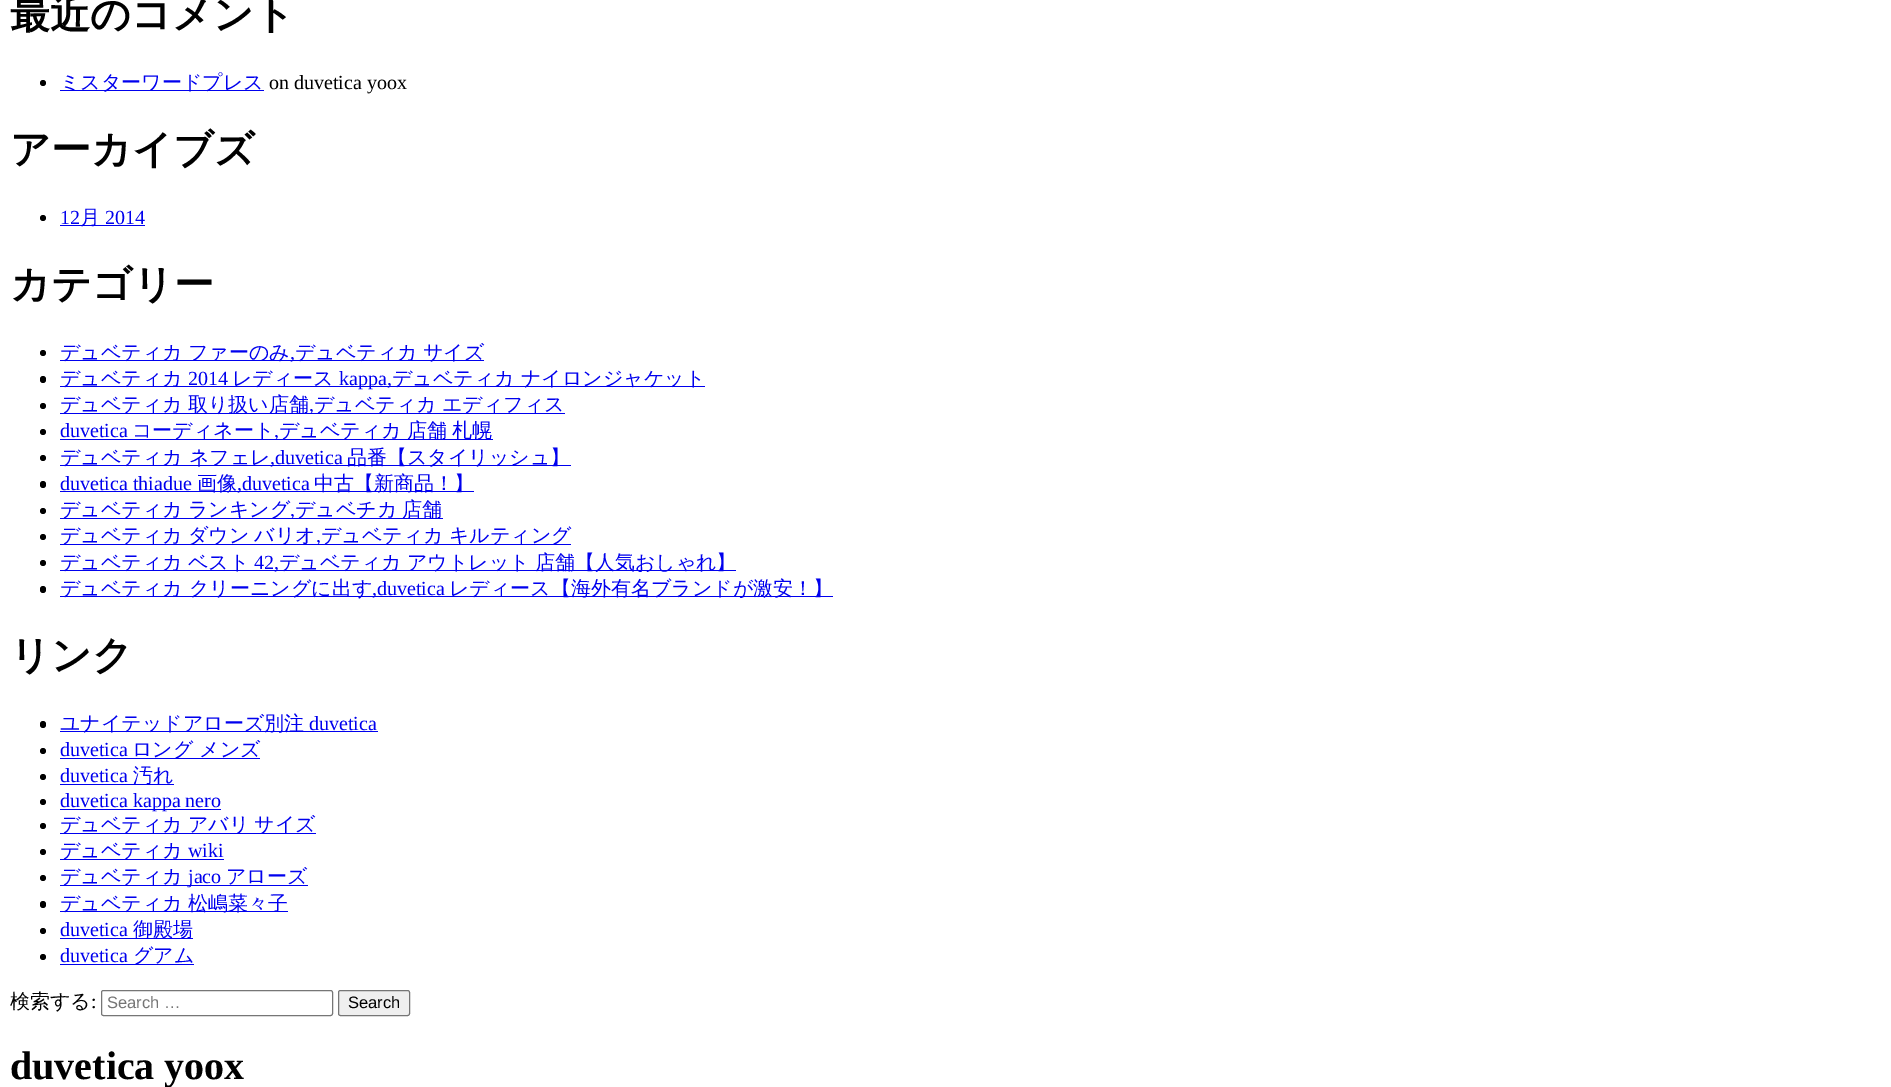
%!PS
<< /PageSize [1891 1087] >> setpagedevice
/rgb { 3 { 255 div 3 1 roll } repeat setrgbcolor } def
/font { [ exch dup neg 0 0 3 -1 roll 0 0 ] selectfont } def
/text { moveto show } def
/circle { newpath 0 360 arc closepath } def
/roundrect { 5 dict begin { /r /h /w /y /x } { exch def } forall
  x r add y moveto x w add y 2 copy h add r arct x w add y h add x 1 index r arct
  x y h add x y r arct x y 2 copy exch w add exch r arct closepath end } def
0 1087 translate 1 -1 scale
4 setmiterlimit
255 255 255 rgb
0 0 1891 1087 rectfill
0 0 0 rgb
43 83 3 circle fill
0 0 238 rgb
60 90 204 1 rectfill
0 0 0 rgb
43 218 3 circle fill
0 0 238 rgb
60 225 85 1 rectfill
0 0 0 rgb
43 353 3 circle fill
0 0 238 rgb
60 360 424 1 rectfill
0 0 0 rgb
40 376 6 7 3 roundrect fill
0 0 238 rgb
60 386 645 1 rectfill
0 0 0 rgb
43 406 3 circle fill
0 0 238 rgb
60 413 505 1 rectfill
0 0 0 rgb
43 432 3 circle fill
0 0 238 rgb
60 439 433 1 rectfill
0 0 0 rgb
43 458 3 circle fill
0 0 238 rgb
60 465 511 1 rectfill
0 0 0 rgb
40 481 6 7 3 roundrect fill
0 0 238 rgb
60 491 414 1 rectfill
0 0 0 rgb
43 511 3 circle fill
0 0 238 rgb
60 518 383 1 rectfill
0 0 0 rgb
43 537 3 circle fill
0 0 238 rgb
60 544 511 1 rectfill
0 0 0 rgb
43 563 3 circle fill
0 0 238 rgb
60 570 676 1 rectfill
0 0 0 rgb
40 586 6 7 3 roundrect fill
0 0 238 rgb
60 596 773 1 rectfill
0 0 0 rgb
40 721 6 7 3 roundrect fill
0 0 238 rgb
60 731 318 1 rectfill
0 0 0 rgb
43 751 3 circle fill
0 0 238 rgb
60 758 200 1 rectfill
0 0 0 rgb
43 777 3 circle fill
0 0 238 rgb
60 784 114 1 rectfill
0 0 0 rgb
43 802 3 circle fill
0 0 238 rgb
60 809 161 1 rectfill
0 0 0 rgb
43 826 3 circle fill
0 0 238 rgb
60 833 256 1 rectfill
0 0 0 rgb
43 852 3 circle fill
0 0 238 rgb
60 859 164 1 rectfill
0 0 0 rgb
43 878 3 circle fill
0 0 238 rgb
60 885 248 1 rectfill
0 0 0 rgb
40 901 6 7 3 roundrect fill
0 0 238 rgb
60 911 228 1 rectfill
0 0 0 rgb
43 931 3 circle fill
0 0 238 rgb
60 938 133 1 rectfill
0 0 0 rgb
43 957 3 circle fill
0 0 238 rgb
60 964 134 1 rectfill
118 118 118 rgb
101.5 990.5 231 25 2 roundrect stroke
239 239 239 rgb
338.5 990.5 71 25 2 roundrect gsave fill grestore
118 118 118 rgb
stroke
/WenQuanYiZenHei-Bold 40 font
0 0 0 rgb
(最近のコメント) 10 28 text
/WenQuanYiZenHei-Medium 20 font
0 0 238 rgb
(ミスターワードプレス) 60 89 text
/LiberationSerif-Regular 20 font
0 0 0 rgb
(on duvetica yoox) 269 89 text
/WenQuanYiZenHei-Bold 40 font
(アーカイブズ) 10 163 text
/LiberationSerif-Regular 20 font
0 0 238 rgb
(12) 60 224 text
/WenQuanYiZenHei-Medium 20 font
(月) 80 224 text
/LiberationSerif-Regular 20 font
(2014) 105 224 text
/WenQuanYiZenHei-Bold 40 font
0 0 0 rgb
(カテゴリー) 10 298 text
/WenQuanYiZenHei-Medium 20 font
0 0 238 rgb
60 359 moveto -1 0 32 (デュベティカ ファーのみ) widthshow
295 359 moveto -1 0 32 (デュベティカ サイズ) widthshow
/LiberationSerif-Regular 20 font
(,) 290 359 text
/WenQuanYiZenHei-Medium 20 font
(デュベティカ) 60 385 text
/LiberationSerif-Regular 20 font
(2014) 188 385 text
/WenQuanYiZenHei-Medium 20 font
(レディース) 232 385 text
/LiberationSerif-Regular 20 font
(kappa,) 339 385 text
/WenQuanYiZenHei-Medium 20 font
(デュベティカ ナイロンジャケット) 392 385 text
60 411 moveto -1 0 32 (デュベティカ 取り扱い店舗) widthshow
314 411 moveto -1 0 32 (デュベティカ エディフィス) widthshow
/LiberationSerif-Regular 20 font
(,) 309 411 text
(duvetica) 60 437 text
/WenQuanYiZenHei-Medium 20 font
(コーディネート) 132 437 text
279 437 moveto -1 0 32 (デュベティカ 店舗 札幌) widthshow
/LiberationSerif-Regular 20 font
(,) 274 437 text
/WenQuanYiZenHei-Medium 20 font
(デュベティカ ネフェレ) 60 464 text
/LiberationSerif-Regular 20 font
(,duvetica) 270 464 text
/WenQuanYiZenHei-Medium 20 font
(品番【スタイリッシュ】) 347 464 text
/LiberationSerif-Regular 20 font
(duvetica thiadue) 60 490 text
/WenQuanYiZenHei-Medium 20 font
(画像) 197 490 text
/LiberationSerif-Regular 20 font
(,duvetica) 237 490 text
/WenQuanYiZenHei-Medium 20 font
(中古【新商品！】) 314 490 text
60 516 moveto -1 0 32 (デュベティカ ランキング) widthshow
295 516 moveto -1 0 32 (デュベチカ 店舗) widthshow
/LiberationSerif-Regular 20 font
(,) 290 516 text
/WenQuanYiZenHei-Medium 20 font
60 542 moveto -1 0 32 (デュベティカ ダウン バリオ) widthshow
321 542 moveto -1 0 32 (デュベティカ キルティング) widthshow
/LiberationSerif-Regular 20 font
(,) 316 542 text
/WenQuanYiZenHei-Medium 20 font
60 569 moveto -1 0 32 (デュベティカ ベスト) widthshow
/LiberationSerif-Regular 20 font
(42,) 254 569 text
/WenQuanYiZenHei-Medium 20 font
279 569 moveto -1 0 32 (デュベティカ アウトレット 店舗【人気おしゃれ】) widthshow
(デュベティカ クリーニングに出す) 60 595 text
/LiberationSerif-Regular 20 font
(,duvetica) 372 595 text
/WenQuanYiZenHei-Medium 20 font
(レディース【海外有名ブランドが激安！】) 449 595 text
/WenQuanYiZenHei-Bold 40 font
0 0 0 rgb
(リンク) 10 669 text
/WenQuanYiZenHei-Medium 20 font
0 0 238 rgb
(ユナイテッドアローズ別注) 60 730 text
/LiberationSerif-Regular 20 font
(duvetica) 309 730 text
(duvetica) 60 756 text
/WenQuanYiZenHei-Medium 20 font
(ロング メンズ) 132 756 text
/LiberationSerif-Regular 20 font
(duvetica) 60 782 text
/WenQuanYiZenHei-Medium 20 font
(汚れ) 133 782 text
/LiberationSerif-Regular 20 font
(duvetica kappa nero) 60 807 text
/WenQuanYiZenHei-Medium 20 font
60 831 moveto -1 0 32 (デュベティカ アバリ サイズ) widthshow
(デュベティカ) 60 857 text
/LiberationSerif-Regular 20 font
(wiki) 188 857 text
/WenQuanYiZenHei-Medium 20 font
(デュベティカ) 60 883 text
/LiberationSerif-Regular 20 font
(jaco) 188 883 text
/WenQuanYiZenHei-Medium 20 font
(アローズ) 226 883 text
60 910 moveto -1 0 32 (デュベティカ 松嶋菜々子) widthshow
/LiberationSerif-Regular 20 font
(duvetica) 60 936 text
/WenQuanYiZenHei-Medium 20 font
(御殿場) 133 936 text
/LiberationSerif-Regular 20 font
(duvetica) 60 962 text
/WenQuanYiZenHei-Medium 20 font
(グアム) 133 962 text
0 0 0 rgb
(検索する) 10 1008 text
/LiberationSerif-Regular 20 font
(:) 91 1008 text
/LiberationSans-Regular 16.5 font
117 117 117 rgb
(Search …) 107 1008 text
0 0 0 rgb
(Search) 348 1008 text
/LiberationSerif-Bold 40 font
(duvetica yoox) 10 1079 text
showpage
